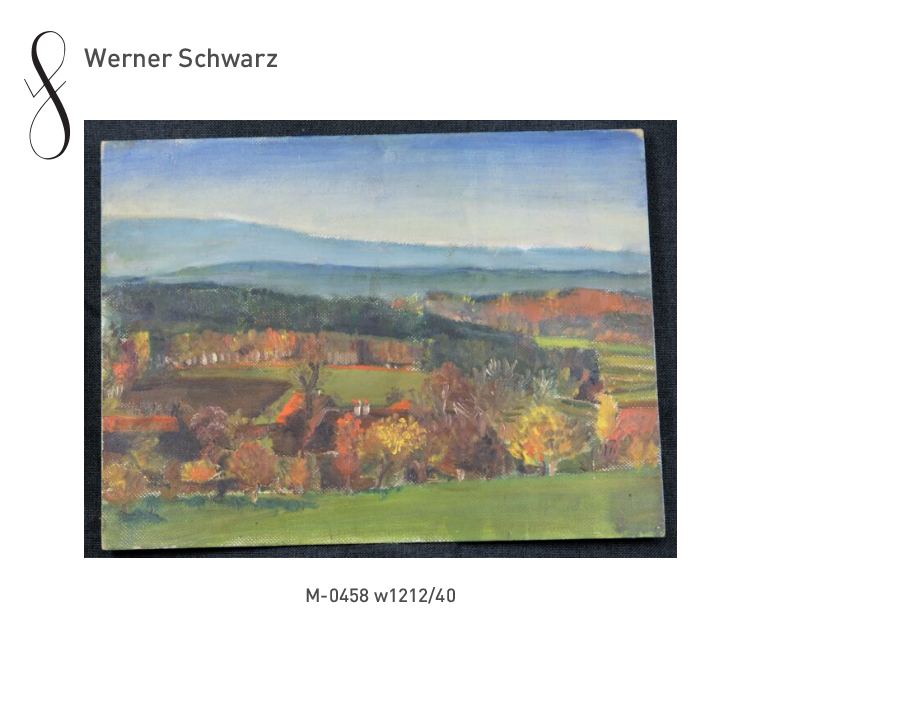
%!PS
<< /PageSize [899 717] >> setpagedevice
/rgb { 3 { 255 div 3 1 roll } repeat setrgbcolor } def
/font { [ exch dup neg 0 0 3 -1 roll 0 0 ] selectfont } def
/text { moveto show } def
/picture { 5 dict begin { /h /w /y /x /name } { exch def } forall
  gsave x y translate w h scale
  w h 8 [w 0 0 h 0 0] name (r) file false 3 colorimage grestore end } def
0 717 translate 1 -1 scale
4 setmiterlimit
255 255 255 rgb
0 0 899 717 rectfill
(img_01.rgb) 24 31 47 129 picture
(img_02.rgb) 84 120 593 438 picture
/DIN-Medium 26 font
77 77 77 rgb
(Werner Schwarz) 84 67 text
/DIN-Medium 19 font
(M-0458 w1212/40) 305 602 text
showpage
